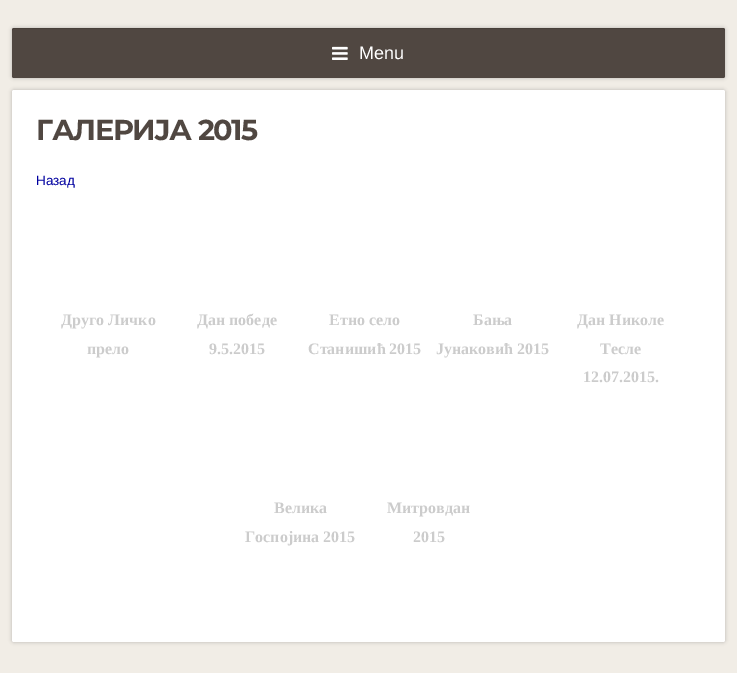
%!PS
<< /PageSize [737 673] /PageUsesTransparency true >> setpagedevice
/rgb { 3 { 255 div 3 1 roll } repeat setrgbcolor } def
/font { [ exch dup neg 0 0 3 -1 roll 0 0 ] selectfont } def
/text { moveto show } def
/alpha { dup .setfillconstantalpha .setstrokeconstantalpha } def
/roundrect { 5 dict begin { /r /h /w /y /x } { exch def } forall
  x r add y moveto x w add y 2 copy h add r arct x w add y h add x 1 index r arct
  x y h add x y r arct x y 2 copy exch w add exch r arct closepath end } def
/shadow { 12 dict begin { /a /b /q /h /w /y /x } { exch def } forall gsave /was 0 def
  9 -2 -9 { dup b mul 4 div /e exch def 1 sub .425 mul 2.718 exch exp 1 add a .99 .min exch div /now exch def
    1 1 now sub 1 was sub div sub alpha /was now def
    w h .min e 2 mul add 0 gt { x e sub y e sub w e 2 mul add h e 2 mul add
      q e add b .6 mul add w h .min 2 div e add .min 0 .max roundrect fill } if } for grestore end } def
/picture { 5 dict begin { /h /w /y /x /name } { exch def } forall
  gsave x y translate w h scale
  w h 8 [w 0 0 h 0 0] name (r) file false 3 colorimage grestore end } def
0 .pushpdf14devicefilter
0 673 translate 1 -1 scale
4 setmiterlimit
241 237 230 rgb
0 0 737 673 rectfill
0 0 0 rgb
12 28 713 50 2 2 0.24 shadow
80 71 65 rgb
12 28 713 50 2 roundrect fill
0.1 alpha
0 0 0 rgb
14 29 moveto 709 0 rlineto 1 0 2 1 2 2 rcurveto 0 -1 0 -3 -2 -3 rcurveto -709 0 rlineto -2 0 -2 2 -2 3 rcurveto 0 -1 1 -2 2 -2 rcurveto closepath fill
1 alpha
(img_01.rgb) 332 46 16 14 picture
12 90 713 552 2 2 0.24 shadow
255 255 255 rgb
12 90 713 552 2 roundrect fill
/LiberationSans-Regular 18 font
(Menu) 359 59 text
/Montserrat-Bold 28.75 font
80 71 65 rgb
36 140 moveto -1.4 0 (ГАЛЕРИЈА 2015) ashow
/LiberationSans-Regular 13.5 font
0 0 160 rgb
(Назад) 36 185 text
/LiberationSerif-Bold 16 font
204 204 204 rgb
(Друго Личко) 61 325 text
(прело) 87 354 text
(Дан победе) 197 325 text
(9.5.2015) 209 354 text
(Етно село) 329 325 text
(Станишић 2015) 308 354 text
(Бања) 473 325 text
(Јунаковић 2015) 436 354 text
(Дан Николе) 577 325 text
(Тесле) 600 354 text
(12.07.2015.) 583 382 text
(Велика) 274 513 text
(Госпојина 2015) 245 542 text
(Митровдан) 387 513 text
(2015) 413 542 text
.poppdf14devicefilter showpage
